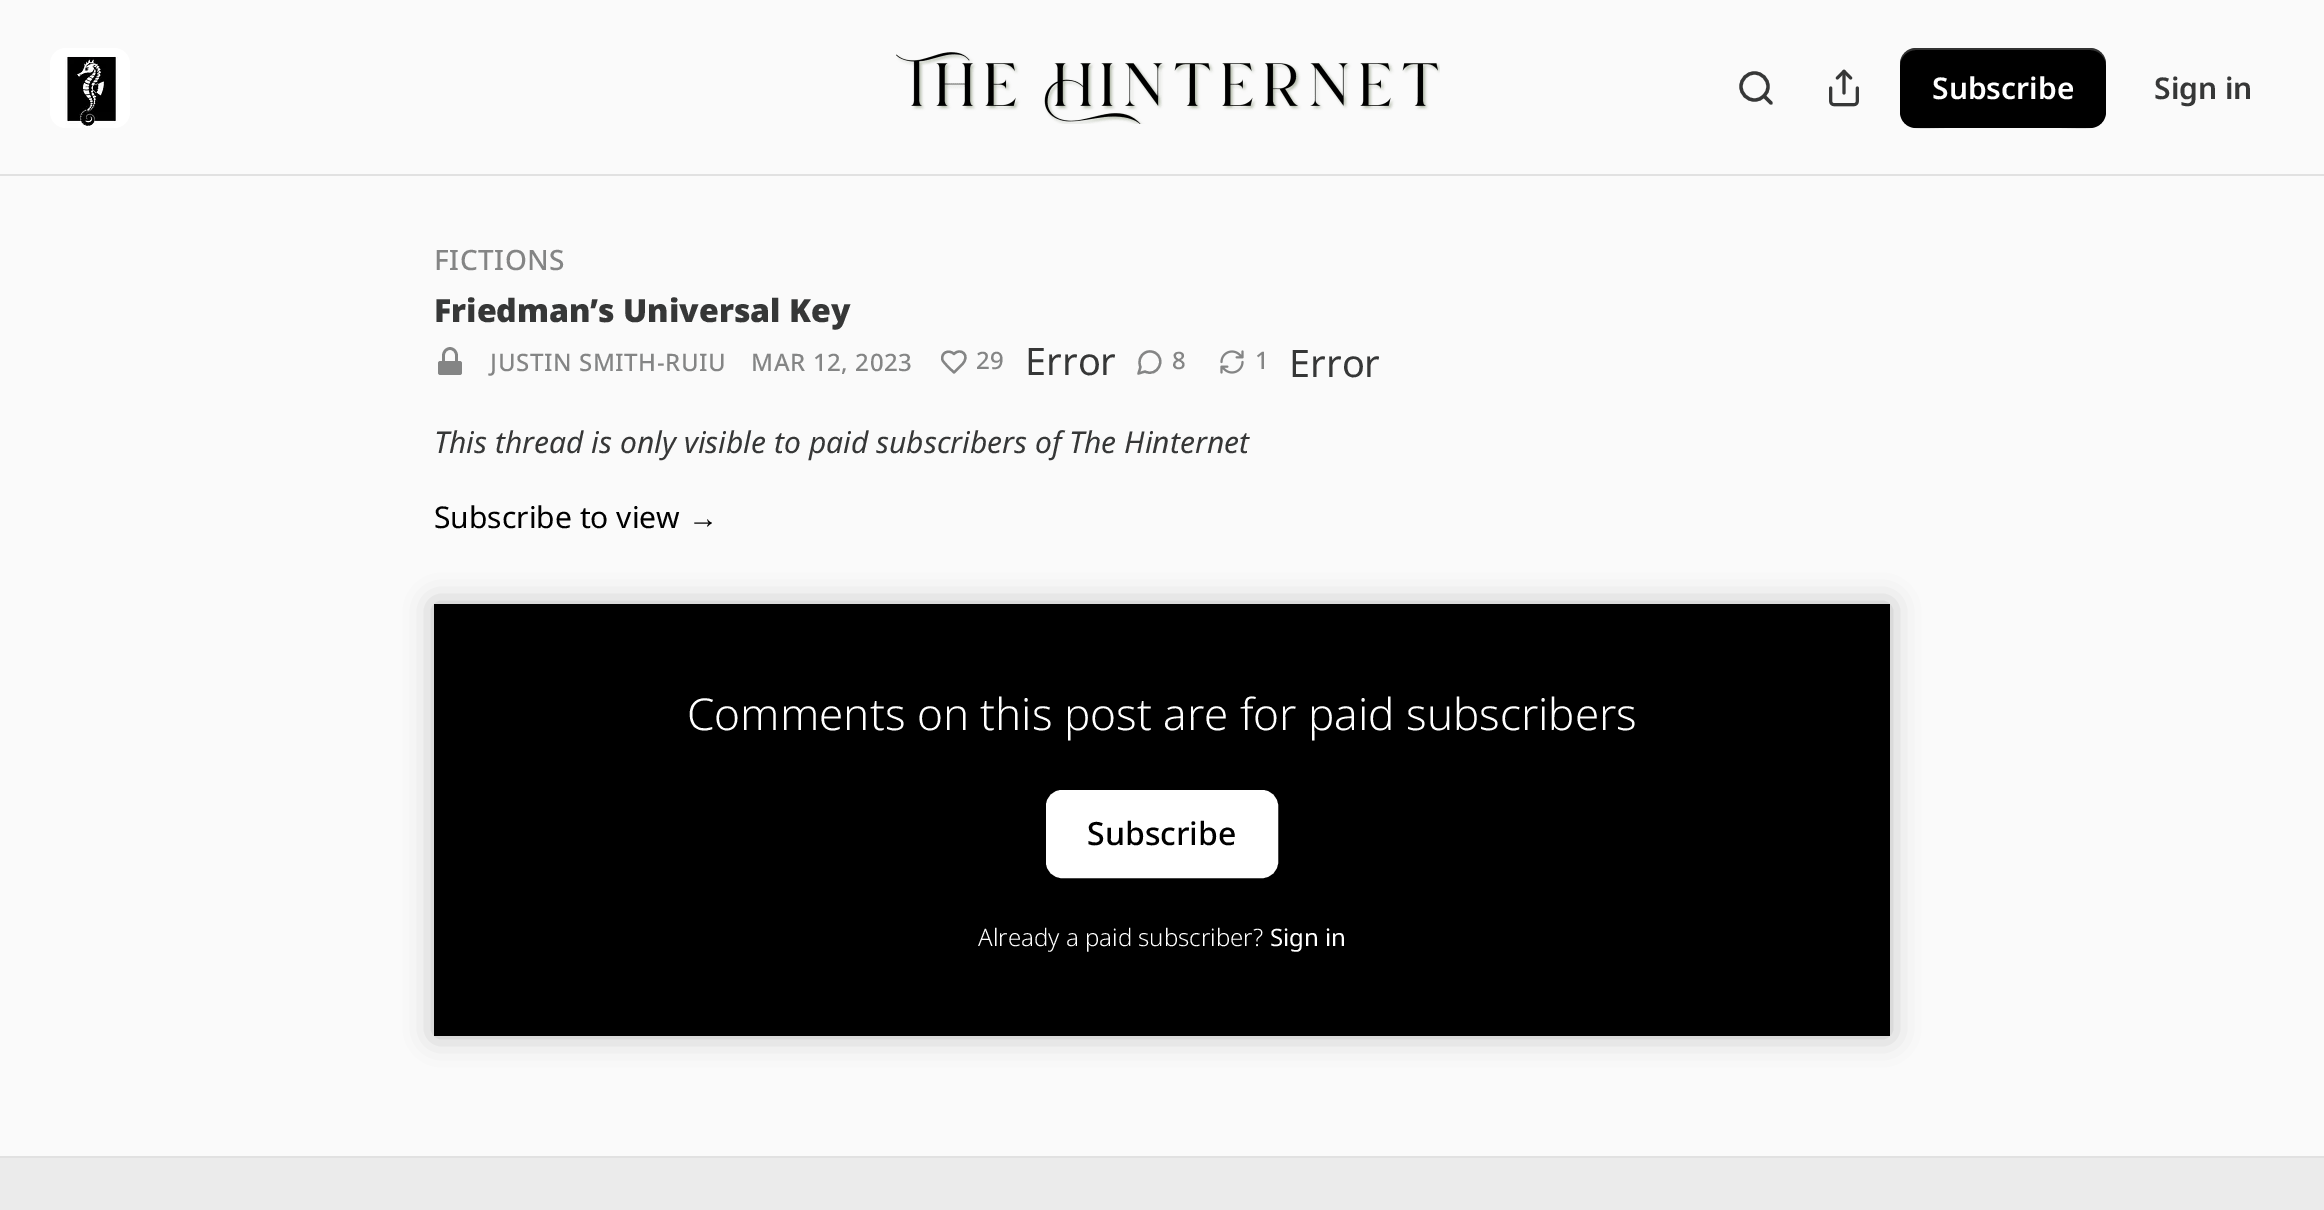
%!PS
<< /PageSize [2324 1210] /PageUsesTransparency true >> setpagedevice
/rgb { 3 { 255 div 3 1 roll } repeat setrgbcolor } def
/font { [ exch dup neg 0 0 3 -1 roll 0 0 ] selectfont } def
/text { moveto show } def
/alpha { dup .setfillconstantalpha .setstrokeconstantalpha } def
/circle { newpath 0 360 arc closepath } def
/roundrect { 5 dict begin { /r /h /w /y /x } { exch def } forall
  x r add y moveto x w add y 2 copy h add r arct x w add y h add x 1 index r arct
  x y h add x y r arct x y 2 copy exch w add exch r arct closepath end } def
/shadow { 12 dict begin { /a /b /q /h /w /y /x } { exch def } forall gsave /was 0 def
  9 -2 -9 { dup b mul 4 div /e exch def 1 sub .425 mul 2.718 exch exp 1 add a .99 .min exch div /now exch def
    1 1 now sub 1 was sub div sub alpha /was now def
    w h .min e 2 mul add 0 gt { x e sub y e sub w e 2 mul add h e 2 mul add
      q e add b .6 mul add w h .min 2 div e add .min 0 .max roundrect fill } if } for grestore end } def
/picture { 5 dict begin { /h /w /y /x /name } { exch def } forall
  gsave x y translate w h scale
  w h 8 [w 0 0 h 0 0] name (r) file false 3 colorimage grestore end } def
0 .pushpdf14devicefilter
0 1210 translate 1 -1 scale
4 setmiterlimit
250 250 250 rgb
0 0 2324 1210 rectfill
225 225 225 rgb
0 174 2324 2 rectfill
255 255 255 rgb
50 48 80 80 16 roundrect fill
(img_01.rgb) 65 56 53 72 picture
(img_02.rgb) 896 52 544 72 picture
54 55 55 rgb
3.3 setlinewidth
1754.5 86.5 13.5 circle stroke
1 setlinecap
1 setlinejoin
1771 103 moveto -7 -7 rlineto stroke
(img_03.rgb) 1829 69 30 38 picture
0 0 0 rgb
1900 48 206 80 16 roundrect fill
0.1 alpha
1900 110 moveto 0 25 29 18 45 18 rcurveto 116 0 rlineto 16 0 45 7 45 -18 rcurveto 0 9 -7 16 -16 16 rcurveto -174 0 rlineto -9 0 -16 -7 -16 -16 rcurveto closepath fill
0.2 alpha
255 255 255 rgb
1916 50 moveto 174 0 rlineto 9 0 16 7 16 16 rcurveto 0 -25 -29 -18 -45 -18 rcurveto -116 0 rlineto -16 0 -45 -7 -45 18 rcurveto 0 -9 7 -16 16 -16 rcurveto closepath fill
1 alpha
132 133 133 rgb
438 361 24 14 2.5 roundrect fill
2.7 setlinewidth
443.5 360.5 moveto 0 -5 rlineto 0 -4 3 -7 6.5 -7 rcurveto 3.5 0 6.5 3 6.5 7 rcurveto 0 5 rlineto stroke
2.3 setlinewidth
962 364.5 moveto 9 -9 -1.5 -17.5 -8 -10.5 rcurveto -5 -5 -13.5 -1.5 -11.5 6 rcurveto 1.5 3.5 9 10 11.5 12.5 rcurveto closepath stroke
1145 371.5 moveto 12.5 6.5 22 -13 9.5 -19 rcurveto -3 -1.5 -6.5 -1.5 -9 0 rcurveto -5.5 2.5 -7.5 9 -5 14.5 rcurveto -2 6.5 rlineto closepath stroke
(img_04.rgb) 1220 350 24 24 picture
0 0 0 rgb
434 604 1456 432 rectfill
255 255 255 rgb
1047 791 230 86 15 roundrect gsave fill grestore
2 setlinewidth
0 setlinecap
0 setlinejoin
stroke
gsave
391 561 moveto 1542 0 rlineto 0 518 rlineto -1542 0 rlineto closepath 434 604 moveto 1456 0 rlineto 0 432 rlineto -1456 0 rlineto closepath eoclip newpath
0 0 0 rgb
434 604 1456 432 0 14 0.25 shadow
grestore
235 235 235 rgb
0 1158 2324 52 rectfill
225 225 225 rgb
0 1156 2324 2 rectfill
/NotoSans-SemiBold 30 font
255 255 255 rgb
(Subscribe) 1932 99 text
54 55 55 rgb
(Sign in) 2154 99 text
/NotoSans-Medium 28 font
132 133 133 rgb
434 270 moveto 0.5 0 (FICTIONS) ashow
/NotoSans-Black 32 font
54 55 55 rgb
(Friedman’s Universal Key) 434 322 text
/NotoSans-Medium 24 font
132 133 133 rgb
490 371 moveto 0.6 0 (JUSTIN SMITH-RUIU) ashow
751 371 moveto 0.6 0 (MAR 12, 2023) ashow
976 369 moveto 0.6 0 (29) ashow
/NotoSans-Regular 38 font
54 55 55 rgb
(Error) 1025 375 text
/NotoSans-Medium 24 font
132 133 133 rgb
1172 369 moveto 0.6 0 (8) ashow
1255 369 moveto 0.6 0 (1) ashow
/NotoSans-Regular 38 font
54 55 55 rgb
(Error) 1289 377 text
/NotoSans-Italic 30 font
(This thread is only visible to paid subscribers of The Hinternet) 434 453 text
/NotoSans-Regular 30 font
0 0 0 rgb
(Subscribe to view) 434 528 text
/LiberationSans-Regular 30 font
(→) 688 528 text
/NotoSans-Light 44 font
255 255 255 rgb
(Comments on this post are for paid subscribers) 687 730 text
/NotoSans-Medium 32 font
0 0 0 rgb
(Subscribe) 1087 845 text
/NotoSans-Light 24 font
255 255 255 rgb
(Already a paid subscriber?) 978 946 text
/NotoSans-Regular 24 font
(Sign in) 1270 946 text
.poppdf14devicefilter showpage
